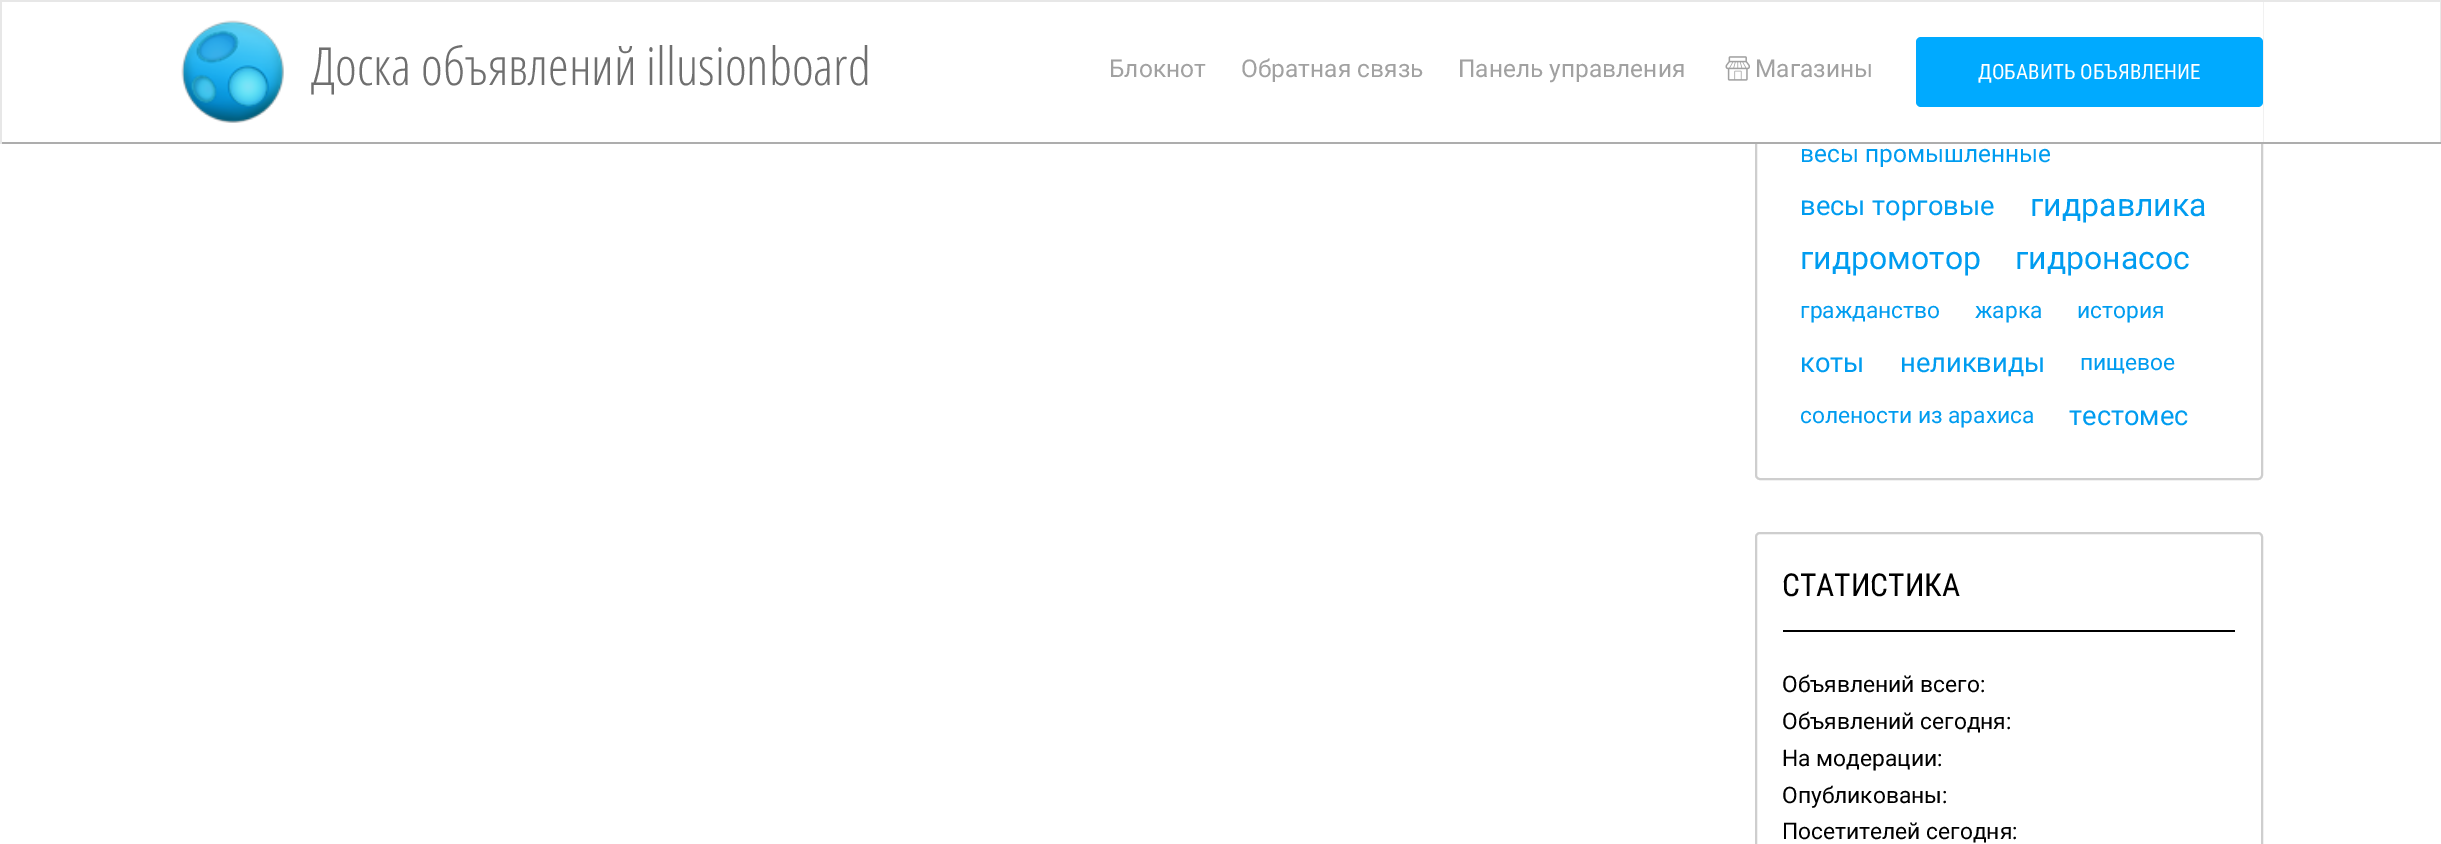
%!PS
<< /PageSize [2441 844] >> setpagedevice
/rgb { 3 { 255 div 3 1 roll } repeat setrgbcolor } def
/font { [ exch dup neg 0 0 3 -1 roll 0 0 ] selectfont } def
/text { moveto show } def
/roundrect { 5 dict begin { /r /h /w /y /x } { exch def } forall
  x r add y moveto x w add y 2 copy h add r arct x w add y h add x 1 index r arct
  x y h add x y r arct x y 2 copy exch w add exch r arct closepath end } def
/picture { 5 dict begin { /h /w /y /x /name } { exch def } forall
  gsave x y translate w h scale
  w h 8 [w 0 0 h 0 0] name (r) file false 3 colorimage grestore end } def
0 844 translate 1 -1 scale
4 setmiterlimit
255 255 255 rgb
0 0 2441 844 rectfill
206 206 206 rgb
2 setlinewidth
1756 -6 506 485 4 roundrect stroke
255 255 255 rgb
1755 2 508 140 rectfill
231 231 231 rgb
0 0 2441 2 rectfill
2440 0 1 144 rectfill
173 173 173 rgb
0 142 2441 2 rectfill
231 231 231 rgb
0 0 2 144 rectfill
(img_01.rgb) 181 20 103 103 picture
(img_02.rgb) 1725 56 25 25 picture
0 170 255 rgb
1916 37 347 70 5 roundrect fill
206 206 206 rgb
1756 533 506 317 4 roundrect stroke
0 0 0 rgb
1783 630 452 2 rectfill
/OpenSansCondensed-Light 52.5 font
111 111 111 rgb
(Доска объявлений illusionboard) 311 85 text
/Roboto-Regular 24.5 font
161 161 161 rgb
(Блокнот) 1109 77 text
(Обратная связь) 1241 77 text
(Панель управления) 1458 77 text
(Магазины) 1755 77 text
/RobotoCondensed-Regular 21 font
255 255 255 rgb
(ДОБАВИТЬ ОБЪЯВЛЕНИЕ) 1978 79 text
/Roboto-Regular 24.5 font
0 156 240 rgb
(весы промышленные) 1800 162 text
/Roboto-Regular 27.25 font
(весы торговые) 1800 215 text
/Roboto-Regular 32 font
(гидравлика) 2030 216 text
(гидромотор) 1800 269 text
(гидронасос) 2015 269 text
/Roboto-Regular 22.75 font
(гражданство) 1800 318 text
(жарка) 1975 318 text
(история) 2077 318 text
/Roboto-Regular 27.25 font
(коты) 1800 372 text
(неликвиды) 1900 372 text
/Roboto-Regular 22.75 font
(пищевое) 2080 370 text
(солености из арахиса) 1800 423 text
/Roboto-Regular 27.25 font
(тестомес) 2069 425 text
/RobotoCondensed-Regular 31.5 font
0 0 0 rgb
(СТАТИСТИКА) 1782 596 text
/Roboto-Regular 22.75 font
(Объявлений всего:) 1782 692 text
(Объявлений сегодня:) 1782 729 text
(На модерации:) 1782 766 text
(Опубликованы:) 1782 803 text
(Посетителей сегодня:) 1782 839 text
showpage
